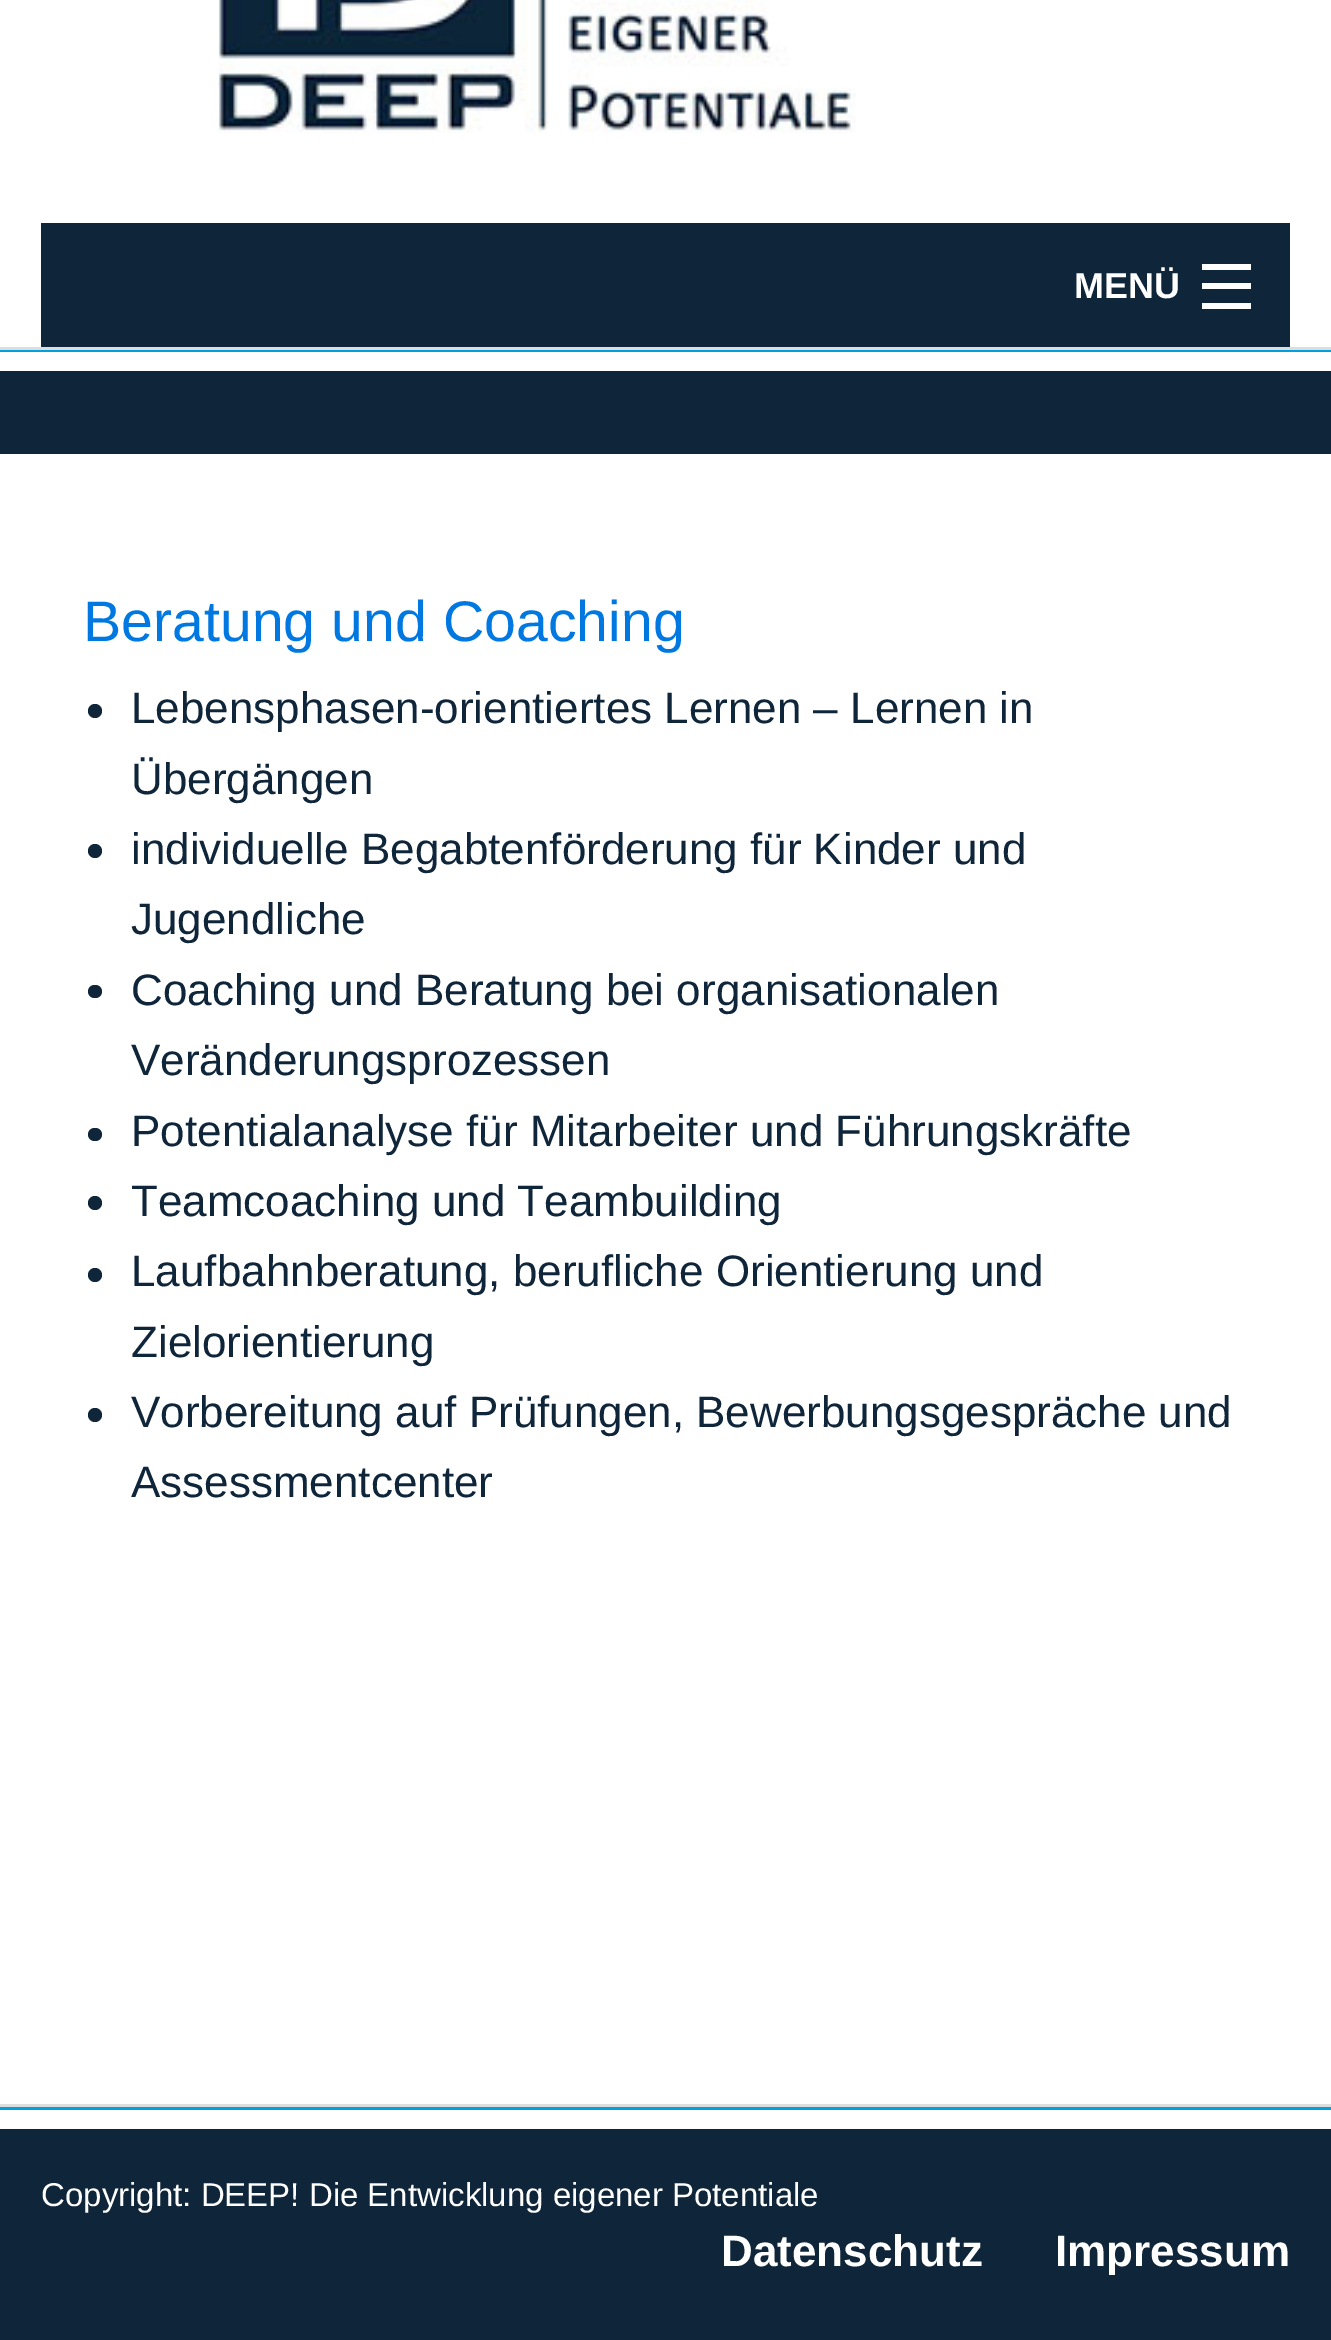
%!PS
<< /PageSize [1331 2340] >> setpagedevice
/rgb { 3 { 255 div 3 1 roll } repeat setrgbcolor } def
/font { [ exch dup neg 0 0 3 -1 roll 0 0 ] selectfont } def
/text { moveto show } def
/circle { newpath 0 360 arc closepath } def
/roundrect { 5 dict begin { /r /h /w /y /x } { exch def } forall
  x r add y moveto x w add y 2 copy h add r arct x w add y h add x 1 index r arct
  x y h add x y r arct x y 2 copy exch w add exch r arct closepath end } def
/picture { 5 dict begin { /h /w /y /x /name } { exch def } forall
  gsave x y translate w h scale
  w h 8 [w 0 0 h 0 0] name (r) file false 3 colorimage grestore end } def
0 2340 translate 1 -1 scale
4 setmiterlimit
255 255 255 rgb
0 0 1331 2340 rectfill
(img_01.rgb) 217 0 639 133 picture
15 37 57 rgb
41 223 1249 124 rectfill
255 255 255 rgb
1202 303 49 6 rectfill
1202 283 49 6 rectfill
1202 264 49 6 rectfill
0 159 222 rgb
0 350 1331 2 rectfill
221 221 221 rgb
0 347 1331 3 rectfill
15 37 57 rgb
0 371 1331 83 rectfill
95 711 7 circle fill
95 851 7 circle fill
88 985 14 13 6.5 roundrect fill
88 1128 14 13 6.5 roundrect fill
95 1203 7 circle fill
95 1275 7 circle fill
95 1415 7 circle fill
0 159 222 rgb
0 2107 1331 3 rectfill
221 221 221 rgb
0 2104 1331 3 rectfill
15 37 57 rgb
0 2129 1331 211 rectfill
/LiberationSans-Bold 36 font
255 255 255 rgb
(MENÜ) 1074 298 text
/LiberationSans-Regular 57.25 font
0 120 225 rgb
(Beratung und Coaching) 83 641 text
/LiberationSans-Regular 44 font
15 37 58 rgb
(Lebensphasen-orientiertes Lernen – Lernen in) 131 723 text
(Übergängen) 131 794 text
(individuelle Begabtenförderung für Kinder und) 131 864 text
(Jugendliche) 131 934 text
(Coaching und Beratung bei organisationalen) 131 1005 text
(Veränderungsprozessen) 131 1075 text
(Potentialanalyse für Mitarbeiter und Führungskräfte) 131 1146 text
(Teamcoaching und Teambuilding) 131 1216 text
(Laufbahnberatung, berufliche Orientierung und) 131 1286 text
(Zielorientierung) 131 1357 text
(Vorbereitung auf Prüfungen, Bewerbungsgespräche und) 131 1427 text
(Assessmentcenter) 131 1497 text
/LiberationSans-Regular 33 font
255 255 255 rgb
(Copyright: DEEP! Die Entwicklung eigener Potentiale) 41 2206 text
/LiberationSans-Bold 44 font
(Datenschutz) 721 2266 text
(Impressum) 1055 2266 text
showpage
